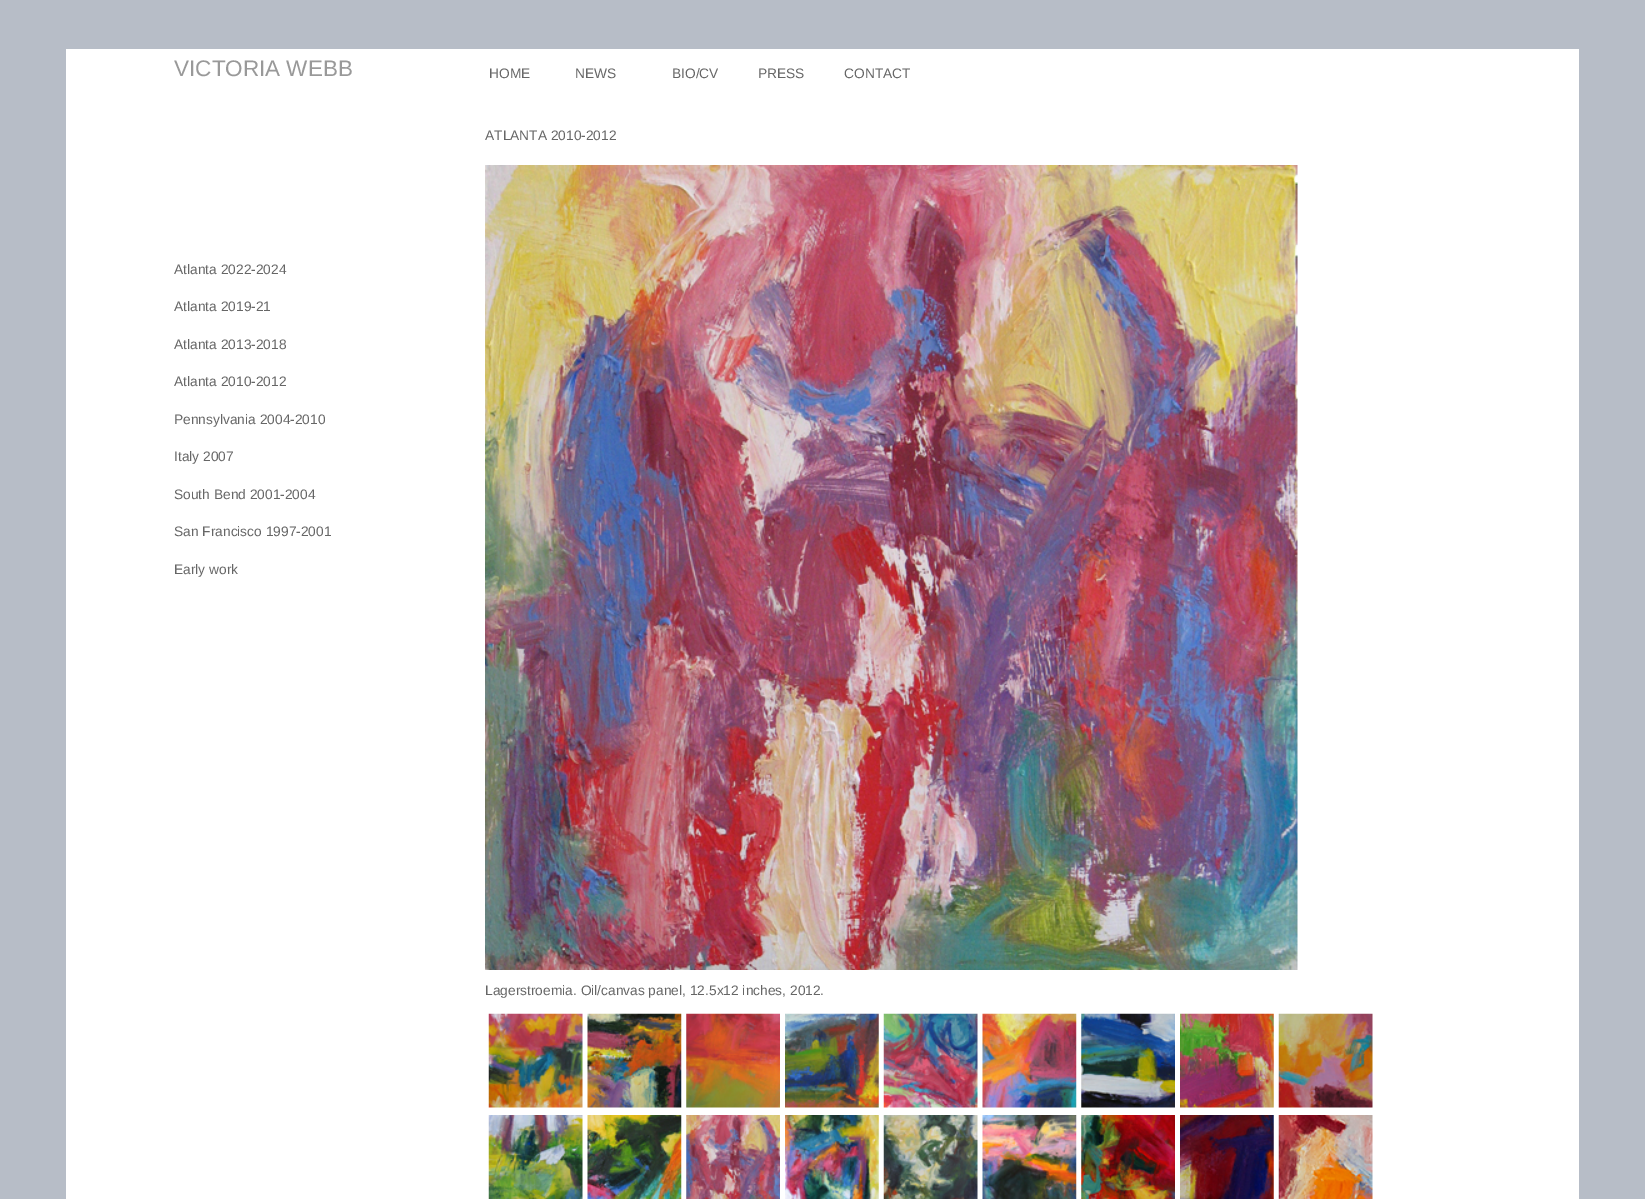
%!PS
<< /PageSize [1645 1199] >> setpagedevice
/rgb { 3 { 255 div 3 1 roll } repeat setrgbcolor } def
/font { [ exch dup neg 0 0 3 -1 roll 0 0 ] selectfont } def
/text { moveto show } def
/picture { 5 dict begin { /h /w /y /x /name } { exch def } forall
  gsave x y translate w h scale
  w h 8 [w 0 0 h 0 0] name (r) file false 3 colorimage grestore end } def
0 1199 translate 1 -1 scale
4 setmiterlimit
183 189 199 rgb
0 0 1645 1199 rectfill
255 255 255 rgb
66 49 1513 1150 rectfill
(img_01.rgb) 485 165 813 805 picture
(img_02.rgb) 488 1013 95 95 picture
(img_03.rgb) 587 1013 95 95 picture
(img_04.rgb) 686 1013 94 95 picture
(img_05.rgb) 785 1013 94 95 picture
(img_06.rgb) 883 1013 95 95 picture
(img_07.rgb) 982 1013 95 95 picture
(img_08.rgb) 1081 1013 94 95 picture
(img_09.rgb) 1180 1013 94 95 picture
(img_10.rgb) 1278 1013 95 95 picture
(img_11.rgb) 488 1115 95 84 picture
(img_12.rgb) 587 1115 95 84 picture
(img_13.rgb) 686 1115 94 84 picture
(img_14.rgb) 785 1115 94 84 picture
(img_15.rgb) 883 1115 95 84 picture
(img_16.rgb) 982 1115 95 84 picture
(img_17.rgb) 1081 1115 94 84 picture
(img_18.rgb) 1180 1115 94 84 picture
(img_19.rgb) 1278 1115 95 84 picture
/LiberationSans-Regular 22.5 font
153 153 153 rgb
(VICTORIA WEBB) 174 76 text
/LiberationSans-Regular 13.75 font
102 102 102 rgb
(Atlanta 2022-2024) 174 274 text
(Atlanta 2019-21) 174 311 text
(Atlanta 2013-2018) 174 349 text
(Atlanta 2010-2012) 174 386 text
(Pennsylvania 2004-2010) 174 424 text
(Italy 2007) 174 461 text
(South Bend 2001-2004) 174 499 text
(San Francisco 1997-2001) 174 536 text
(Early work) 174 574 text
(HOME) 489 78 text
(NEWS) 575 78 text
(BIO/CV) 672 78 text
(PRESS) 758 78 text
(CONTACT) 844 78 text
(ATLANTA 2010-2012) 485 140 text
(Lagerstroemia. Oil/canvas panel, 12.5x12 inches, 2012.) 485 995 text
showpage
